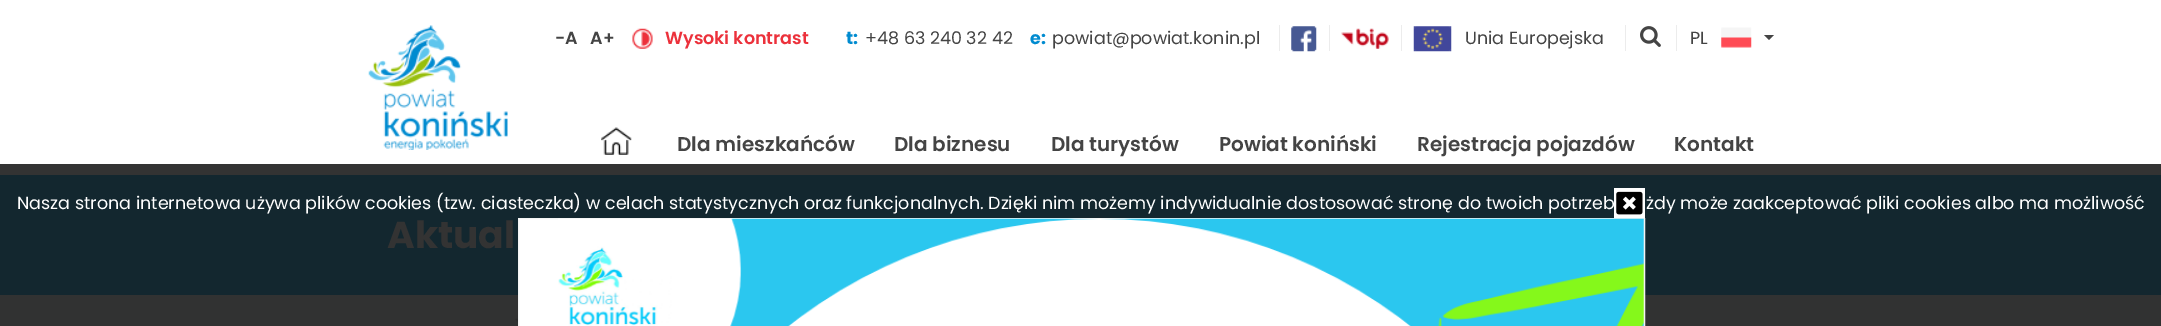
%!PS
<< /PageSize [2161 326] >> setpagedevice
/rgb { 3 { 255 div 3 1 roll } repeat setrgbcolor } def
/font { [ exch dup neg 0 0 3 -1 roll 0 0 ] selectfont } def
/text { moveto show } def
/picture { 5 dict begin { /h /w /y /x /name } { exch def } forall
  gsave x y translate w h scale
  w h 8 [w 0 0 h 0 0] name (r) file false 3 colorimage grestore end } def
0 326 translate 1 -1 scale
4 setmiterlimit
255 255 255 rgb
0 0 2161 326 rectfill
51 51 51 rgb
0 164 2161 11 rectfill
(img_01.rgb) 368 25 140 125 picture
(img_02.rgb) 632 28 21 21 picture
236 236 236 rgb
1279 25 1 26 rectfill
(img_03.rgb) 1291 26 26 26 picture
1329 25 1 26 rectfill
(img_04.rgb) 1341 28 48 21 picture
1401 25 1 26 rectfill
(img_05.rgb) 1413 26 39 26 picture
1625 25 1 26 rectfill
(img_06.rgb) 1640 26 21 21 picture
1676 25 1 26 rectfill
(img_07.rgb) 1721 27 31 21 picture
68 68 68 rgb
1764 35 moveto 10 0 rlineto -5 5 rlineto closepath fill
(img_08.rgb) 601 127 31 28 picture
19 39 47 rgb
0 175 2161 120 rectfill
255 255 255 rgb
1614 188 31 30 rectfill
(img_09.rgb) 1616 191 27 24 picture
49 50 50 rgb
0 295 2161 31 rectfill
255 255 255 rgb
518.5 218.5 moveto 1126 0 rlineto 0 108 rlineto -1126 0 rlineto closepath gsave fill grestore
243 243 243 rgb
stroke
(img_10.rgb) 558 218 1086 108 picture
(img_11.rgb) 515 318 3 5 picture
/Poppins-SemiBold 17.5 font
68 68 68 rgb
(-A) 555 44 text
(A+) 590 44 text
236 49 59 rgb
(Wysoki kontrast) 665 44 text
/Poppins-Bold 17.5 font
0 139 208 rgb
(t:) 846 44 text
/Poppins-Regular 17.5 font
68 68 68 rgb
(+48 63 240 32 42) 865 44 text
/Poppins-Bold 17.5 font
0 139 208 rgb
(e:) 1030 44 text
/Poppins-Regular 17.5 font
68 68 68 rgb
(powiat@powiat.konin.pl) 1052 44 text
(Unia Europejska) 1465 44 text
(PL) 1690 44 text
/Poppins-SemiBold 20 font
(Dla mieszkańców) 677 151 text
(Dla biznesu) 894 151 text
(Dla turystów) 1051 151 text
(Powiat koniński) 1219 151 text
(Rejestracja pojazdów) 1417 151 text
(Kontakt) 1674 151 text
/Poppins-Regular 17.5 font
255 255 255 rgb
(Nasza strona internetowa używa plików cookies \(tzw. ciasteczka\) w celach statystycznych oraz funkcjonalnych. Dzięki nim możemy indywidualnie dostosować stronę do twoich potrzeb) 17 209 text
(żdy może zaakceptować pliki cookies albo ma możliwość) 1646 209 text
/Poppins-Bold 37.5 font
51 51 51 rgb
(Aktual) 387 248 text
showpage
